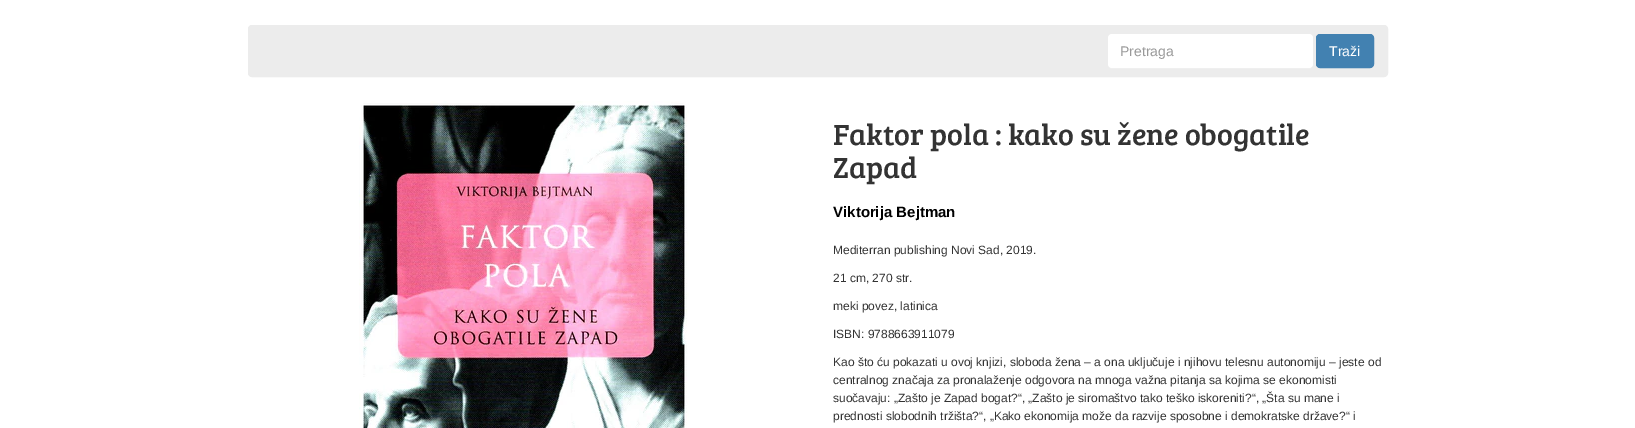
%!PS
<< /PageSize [1635 428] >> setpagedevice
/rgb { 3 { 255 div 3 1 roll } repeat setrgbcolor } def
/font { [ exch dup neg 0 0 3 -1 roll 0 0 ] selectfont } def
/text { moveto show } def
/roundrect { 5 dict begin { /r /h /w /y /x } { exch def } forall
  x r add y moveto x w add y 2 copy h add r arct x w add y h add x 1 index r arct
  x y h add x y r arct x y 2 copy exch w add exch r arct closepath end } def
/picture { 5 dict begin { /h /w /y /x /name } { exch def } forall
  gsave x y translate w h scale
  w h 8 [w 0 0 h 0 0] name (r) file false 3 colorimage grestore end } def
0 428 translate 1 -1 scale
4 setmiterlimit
255 255 255 rgb
0 0 1635 428 rectfill
236 236 236 rgb
248.5 25.5 1139 51 3.5 roundrect gsave fill grestore
stroke
239 239 239 rgb
1108 64 moveto 0 1 rlineto 0 2 2 4 4 4 rcurveto 197 0 rlineto 2 0 4 -2 4 -4 rcurveto 0 -1 rlineto 0 2 -2 4 -4 4 rcurveto -197 0 rlineto -2 0 -4 -2 -4 -4 rcurveto closepath fill
255 255 255 rgb
1108 34 205 34 4 roundrect fill
66 129 177 rgb
1316.5 34.5 57 33 3.5 roundrect gsave fill grestore
stroke
(img_01.rgb) 359 101 330 327 picture
/LiberationSans-Regular 14 font
153 153 153 rgb
(Pretraga) 1120 56 text
255 255 255 rgb
(Traži) 1329 56 text
/BreeSerif-Regular 30 font
51 51 51 rgb
(Faktor pola : kako su žene obogatile) 833 145 text
(Zapad) 833 178 text
/LiberationSans-Bold 15 font
0 0 0 rgb
(Viktorija Bejtman) 833 217 text
/LiberationSans-Regular 12 font
51 51 51 rgb
(Mediterran publishing Novi Sad, 2019.) 833 254 text
(21 cm, 270 str.) 833 282 text
(meki povez, latinica) 833 310 text
(ISBN: 9788663911079) 833 338 text
(Kao što ću pokazati u ovoj knjizi, sloboda žena – a ona uključuje i njihovu telesnu autonomiju – jeste od) 833 366 text
(centralnog značaja za pronalaženje odgovora na mnoga važna pitanja sa kojima se ekonomisti) 833 384 text
(suočavaju: „Zašto je Zapad bogat?“, „Zašto je siromaštvo tako teško iskoreniti?“, „Šta su mane i) 833 402 text
(prednosti slobodnih tržišta?“, „Kako ekonomija može da razvije sposobne i demokratske države?“ i) 833 420 text
showpage
